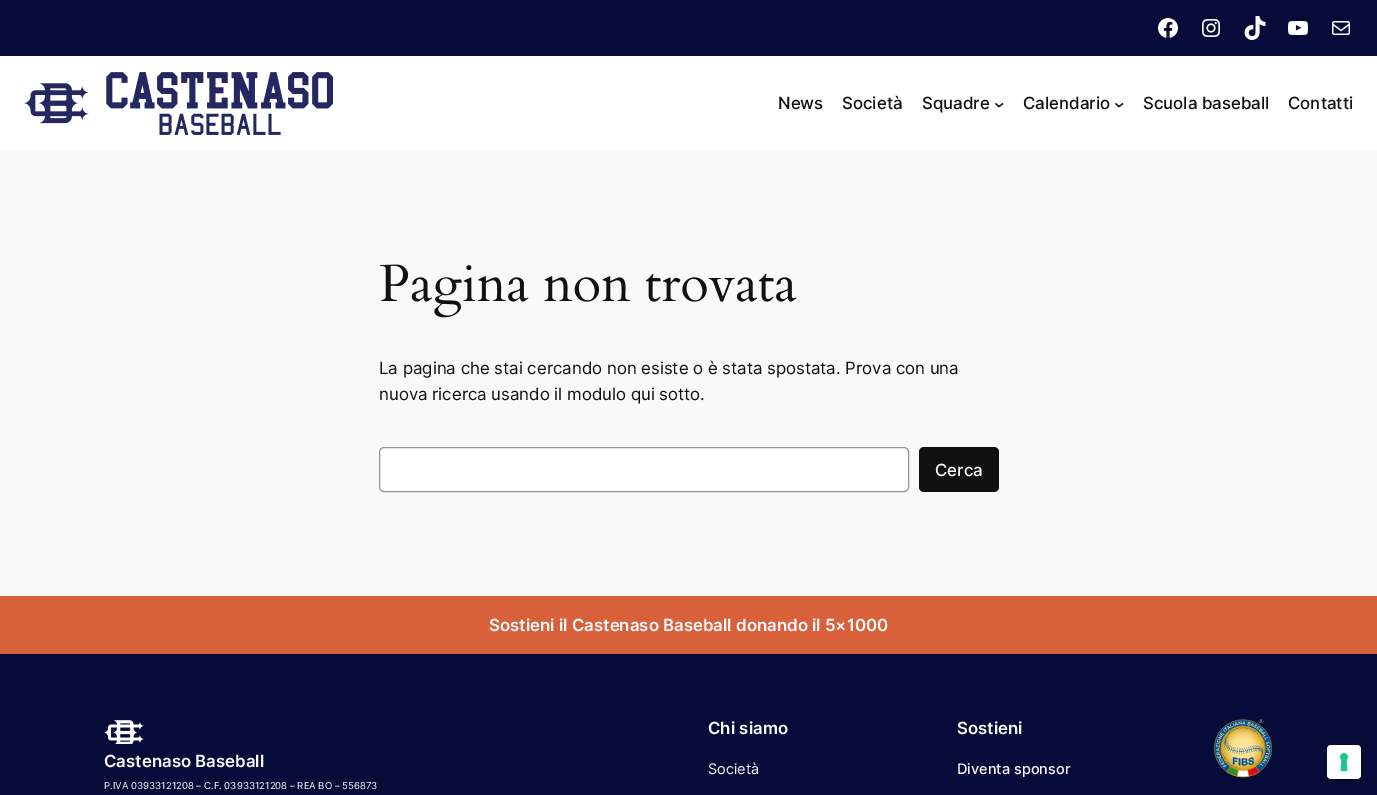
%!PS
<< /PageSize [1377 795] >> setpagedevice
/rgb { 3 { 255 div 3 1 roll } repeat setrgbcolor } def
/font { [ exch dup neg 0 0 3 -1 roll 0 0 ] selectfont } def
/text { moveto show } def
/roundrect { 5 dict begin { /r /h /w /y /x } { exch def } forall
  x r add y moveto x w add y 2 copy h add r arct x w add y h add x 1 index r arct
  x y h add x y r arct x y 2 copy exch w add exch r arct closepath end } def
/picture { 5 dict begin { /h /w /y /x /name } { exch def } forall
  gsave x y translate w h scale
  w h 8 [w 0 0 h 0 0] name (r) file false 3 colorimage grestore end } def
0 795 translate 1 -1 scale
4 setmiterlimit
249 249 249 rgb
0 0 1377 795 rectfill
255 255 255 rgb
0 56 1377 95 rectfill
7 11 58 rgb
0 0 1377 56 rectfill
(img_01.rgb) 1158 18 20 20 picture
(img_02.rgb) 1202 19 18 18 picture
(img_03.rgb) 1244 16 22 24 picture
(img_04.rgb) 1288 21 20 14 picture
(img_05.rgb) 1332 21 18 14 picture
(img_06.rgb) 24 72 309 63 picture
17 17 17 rgb
1.3 setlinewidth
995.5 103.5 moveto 3.5 3 rlineto 4 -3 rlineto stroke
1115.5 103.5 moveto 3.5 3 rlineto 4 -3 rlineto stroke
(img_07.rgb) 380 264 417 54 picture
255 255 255 rgb
379.5 447.5 529 44 4.5 roundrect gsave fill grestore
148 148 148 rgb
1 setlinewidth
stroke
17 17 17 rgb
919 447 80 45 5 roundrect fill
7 11 58 rgb
0 654 1377 141 rectfill
216 97 60 rgb
0 596 1377 58 rectfill
(img_08.rgb) 104 720 40 24 picture
(img_09.rgb) 1213 719 60 59 picture
6 9 49 rgb
1326.5 744.5 35 35 4.5 roundrect stroke
255 255 255 rgb
1327 745 34 34 4 roundrect fill
(img_10.rgb) 1340 753 8 18 picture
/Inter-Medium 16.8 font
17 17 17 rgb
(News) 778 109 text
(Società) 842 109 text
(Squadre) 922 109 text
(Calendario) 1023 109 text
(Scuola baseball) 1143 109 text
(Contatti) 1288 109 text
/Inter-Regular 16.8 font
(La pagina che stai cercando non esiste o è stata spostata. Prova con una) 379 374 text
(nuova ricerca usando il modulo qui sotto.) 379 400 text
/Inter-Medium 16.8 font
249 249 249 rgb
(Cerca) 935 476 text
/Inter-SemiBold 16.8 font
(Sostieni il Castenaso Baseball donando il 5×1000) 489 631 text
(Castenaso Baseball) 104 767 text
/Inter-Regular 9.6 font
(P.IVA 03933121208 – C.F. 03933121208 – REA BO – 556873) 104 789 text
/Inter-SemiBold 16.8 font
(Chi siamo) 708 734 text
/Inter-Regular 14.5 font
(Società) 708 774 text
/Inter-SemiBold 16.8 font
(Sostieni) 957 734 text
/Inter-Medium 14.5 font
(Diventa sponsor) 957 774 text
showpage
